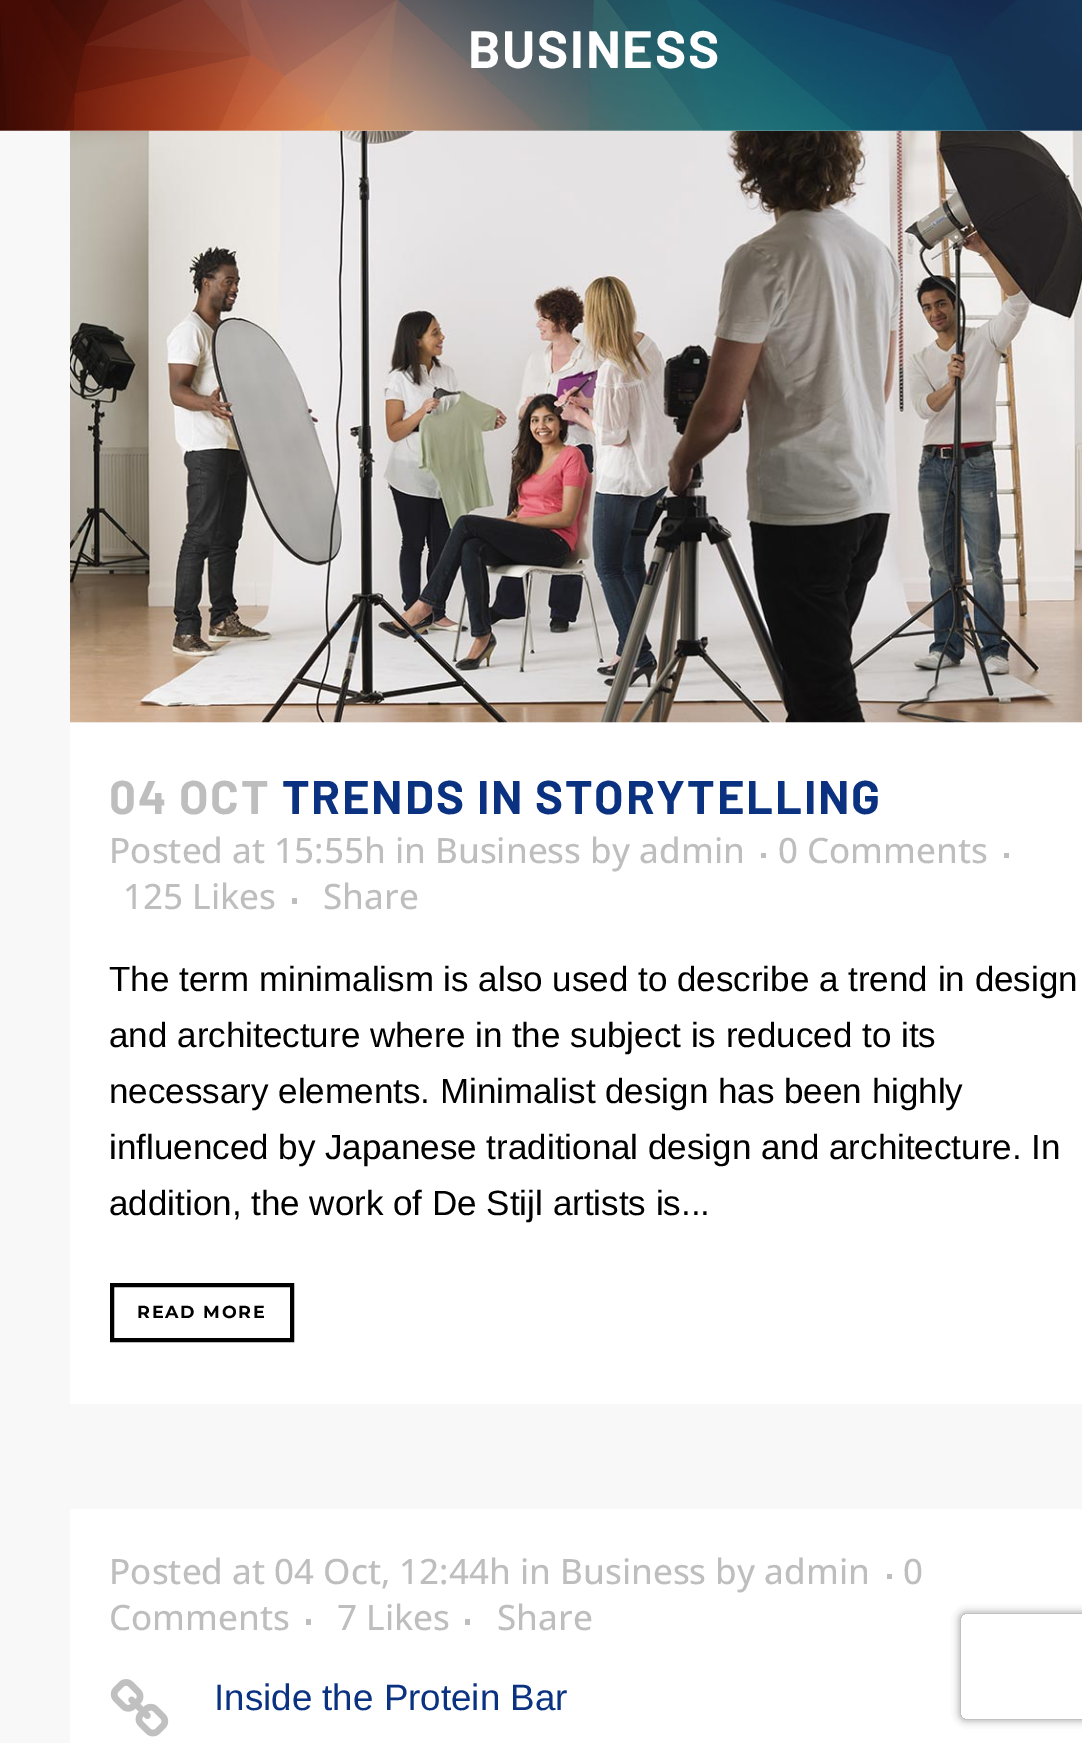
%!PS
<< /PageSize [1082 1743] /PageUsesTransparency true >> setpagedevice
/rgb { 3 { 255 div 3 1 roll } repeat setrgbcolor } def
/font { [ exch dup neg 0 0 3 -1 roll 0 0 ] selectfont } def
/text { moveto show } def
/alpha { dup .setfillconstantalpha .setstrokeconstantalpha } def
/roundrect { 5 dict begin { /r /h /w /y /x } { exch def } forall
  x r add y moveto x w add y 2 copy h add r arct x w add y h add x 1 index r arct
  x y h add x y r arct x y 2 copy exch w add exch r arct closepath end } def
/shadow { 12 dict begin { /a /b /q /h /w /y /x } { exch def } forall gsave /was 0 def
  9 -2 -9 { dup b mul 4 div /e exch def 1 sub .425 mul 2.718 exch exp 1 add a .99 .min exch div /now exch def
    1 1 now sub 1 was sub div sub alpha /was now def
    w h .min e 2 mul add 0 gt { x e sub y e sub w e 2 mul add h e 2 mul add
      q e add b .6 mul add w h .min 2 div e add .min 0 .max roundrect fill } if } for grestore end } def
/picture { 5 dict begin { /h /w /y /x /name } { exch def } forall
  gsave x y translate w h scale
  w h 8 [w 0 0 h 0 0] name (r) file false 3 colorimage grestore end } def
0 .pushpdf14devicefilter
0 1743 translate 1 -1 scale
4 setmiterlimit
248 248 248 rgb
0 0 1082 1743 rectfill
(img_02.rgb) 70 130 1012 593 picture
(img_01.rgb) 0 0 1082 131 picture
255 255 255 rgb
70 723 1012 681 rectfill
190 190 190 rgb
761 853 5 5 rectfill
1004 853 5 5 rectfill
292 898 5 6 rectfill
0 0 0 rgb
4 setlinewidth
112 1285 180 55 rectstroke
255 255 255 rgb
70 1509 1012 234 rectfill
190 190 190 rgb
887 1574 5 5 rectfill
306 1619 5 6 rectfill
465 1619 5 6 rectfill
(img_03.rgb) 110 1679 59 58 picture
gsave
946 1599 moveto 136 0 rlineto 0 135 rlineto -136 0 rlineto closepath 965 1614 moveto 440 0 rlineto 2 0 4 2 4 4 rcurveto 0 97 rlineto 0 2 -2 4 -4 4 rcurveto -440 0 rlineto -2 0 -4 -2 -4 -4 rcurveto 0 -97 rlineto 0 -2 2 -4 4 -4 rcurveto closepath eoclip newpath
128 128 128 rgb
961 1614 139 105 4 4.5 1 shadow
grestore
/Barlow-Bold 52.5 font
255 255 255 rgb
468 68 moveto 1.75 0 (BUSINESS) ashow
/Barlow-Bold 47.25 font
190 190 190 rgb
109 814 moveto 1.75 0 (04 OCT) ashow
11 50 129 rgb
282 814 moveto 1.75 0 (TRENDS IN STORYTELLING) ashow
/OpenSans-Medium 35 font
190 190 190 rgb
(Posted at 15:55h in Business by admin) 109 863 text
(0 Comments) 778 863 text
(125) 123 909 text
(Likes) 192 909 text
(Share) 323 909 text
/LiberationSans-Regular 35 font
0 0 0 rgb
(The term minimalism is also used to describe a trend in design) 109 991 text
(and architecture where in the subject is reduced to its) 109 1047 text
(necessary elements. Minimalist design has been highly) 109 1103 text
(influenced by Japanese traditional design and architecture. In) 109 1159 text
(addition, the work of De Stijl artists is...) 109 1215 text
/Montserrat-Bold 17.5 font
137 1318 moveto 1.75 0 (READ MORE) ashow
/OpenSans-Medium 35 font
190 190 190 rgb
(Posted at 04 Oct, 12:44h in Business by admin) 109 1584 text
(0) 903 1584 text
(Comments) 109 1630 text
(7) 337 1630 text
(Likes) 366 1630 text
(Share) 497 1630 text
/LiberationSans-Regular 36.75 font
11 50 129 rgb
(Inside the Protein Bar) 214 1710 text
.poppdf14devicefilter showpage
